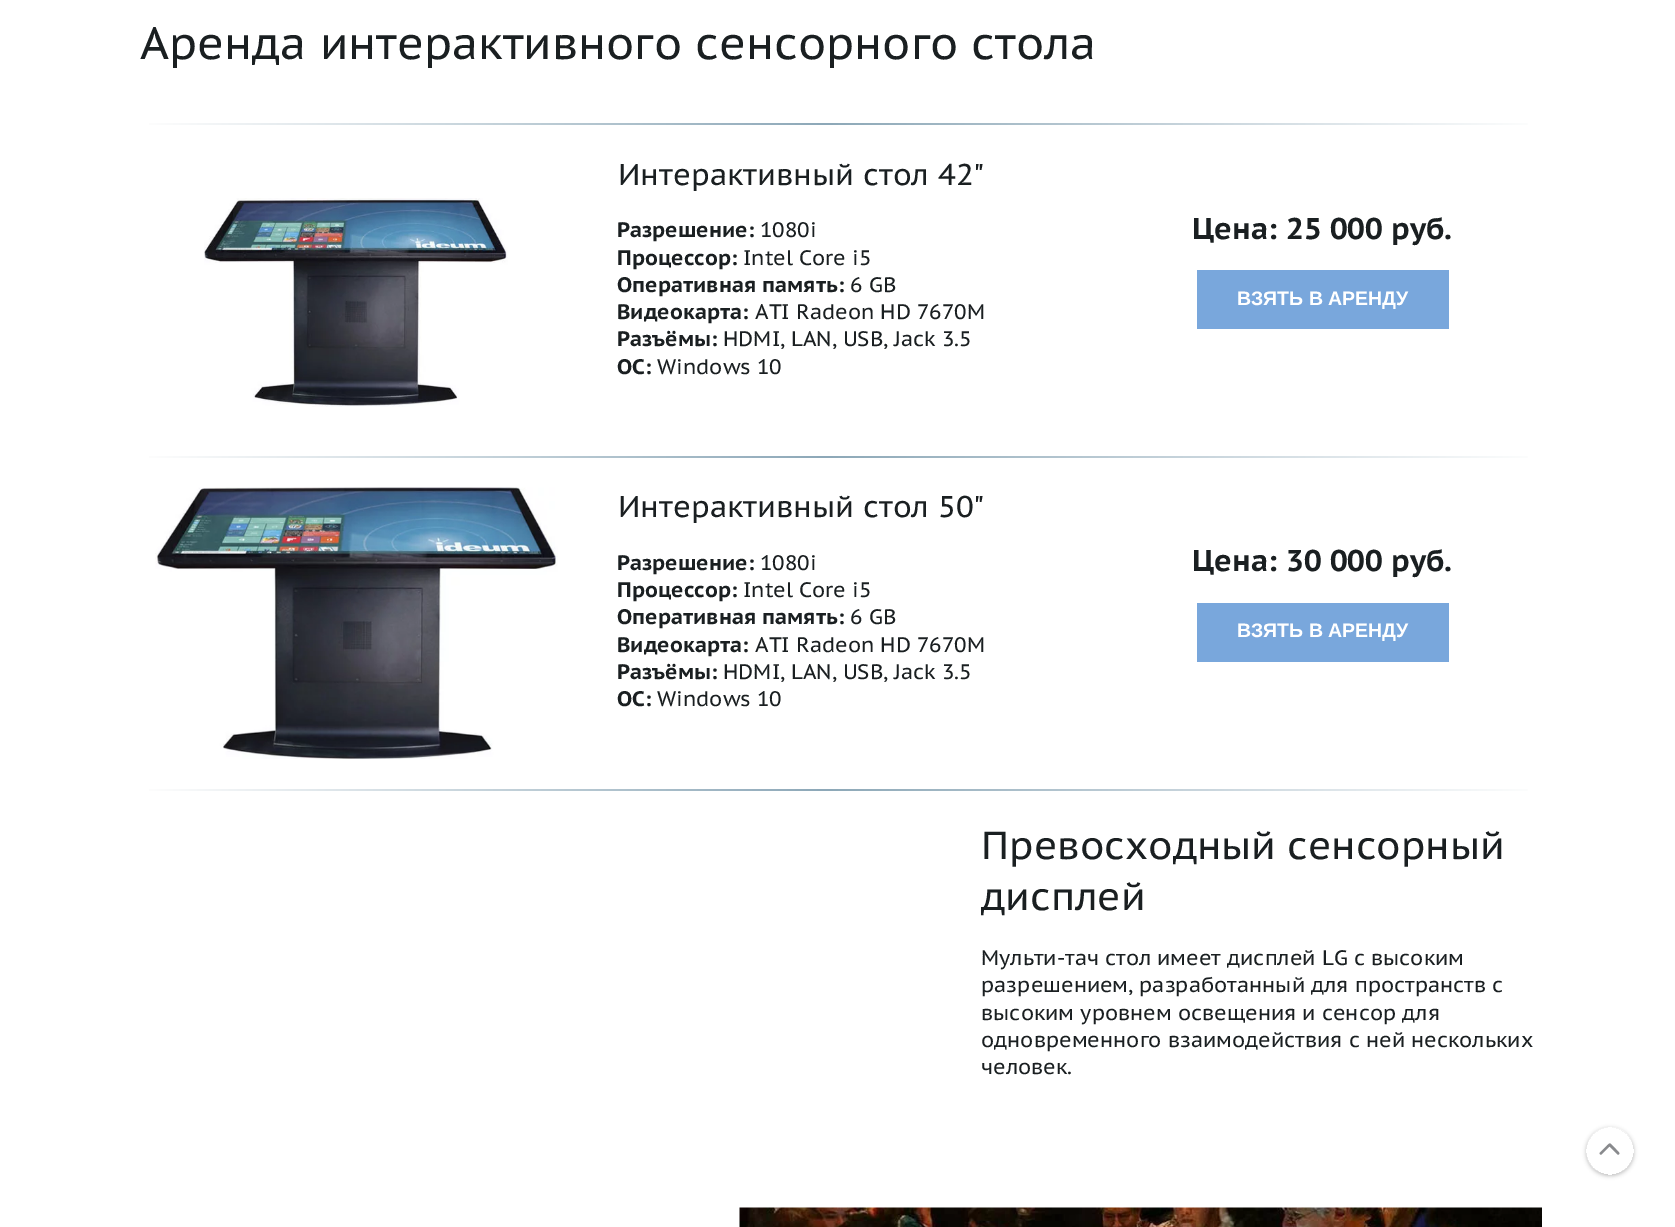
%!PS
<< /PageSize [1675 1227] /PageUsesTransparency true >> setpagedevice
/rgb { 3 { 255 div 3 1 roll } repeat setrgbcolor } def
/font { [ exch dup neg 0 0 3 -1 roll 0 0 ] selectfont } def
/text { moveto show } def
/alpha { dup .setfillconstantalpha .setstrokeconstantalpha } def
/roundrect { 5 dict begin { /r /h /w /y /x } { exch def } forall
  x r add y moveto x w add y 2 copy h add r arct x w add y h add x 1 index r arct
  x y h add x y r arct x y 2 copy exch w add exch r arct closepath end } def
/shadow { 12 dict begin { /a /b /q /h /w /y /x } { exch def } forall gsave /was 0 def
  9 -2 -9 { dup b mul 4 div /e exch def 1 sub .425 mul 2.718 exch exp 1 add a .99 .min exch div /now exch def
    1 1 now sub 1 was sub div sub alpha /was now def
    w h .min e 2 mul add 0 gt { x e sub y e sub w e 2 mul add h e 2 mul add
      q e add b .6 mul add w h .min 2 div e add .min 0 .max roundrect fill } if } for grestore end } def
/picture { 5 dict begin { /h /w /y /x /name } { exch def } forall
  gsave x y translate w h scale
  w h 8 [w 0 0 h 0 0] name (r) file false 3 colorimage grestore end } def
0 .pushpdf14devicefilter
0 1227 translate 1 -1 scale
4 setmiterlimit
255 255 255 rgb
0 0 1675 1227 rectfill
gsave 149 123 moveto 1379 0 rlineto 0 2 rlineto -1379 0 rlineto closepath clip newpath
<< /ShadingType 2 /ColorSpace /DeviceRGB /Coords [134 124 1544 124] /Extend [true true] /Function << /FunctionType 3 /Domain [0 1] /Functions [<< /FunctionType 2 /Domain [0 1] /C0 [1 1 1] /C1 [0.553 0.659 0.722] /N 1 >> << /FunctionType 2 /Domain [0 1] /C0 [0.553 0.659 0.722] /C1 [1 1 1] /N 1 >>] /Bounds [0.49] /Encode [0 1 0 1] >> >> shfill grestore
(img_01.rgb) 204 198 304 209 picture
121 167 220 rgb
1197 270 252 59 rectfill
gsave 149 456 moveto 1379 0 rlineto 0 2 rlineto -1379 0 rlineto closepath clip newpath
<< /ShadingType 2 /ColorSpace /DeviceRGB /Coords [134 457 1544 457] /Extend [true true] /Function << /FunctionType 3 /Domain [0 1] /Functions [<< /FunctionType 2 /Domain [0 1] /C0 [1 1 1] /C1 [0.553 0.659 0.722] /N 1 >> << /FunctionType 2 /Domain [0 1] /C0 [0.553 0.659 0.722] /C1 [1 1 1] /N 1 >>] /Bounds [0.49] /Encode [0 1 0 1] >> >> shfill grestore
(img_02.rgb) 155 487 403 272 picture
1197 603 252 59 rectfill
gsave 149 789 moveto 1379 0 rlineto 0 2 rlineto -1379 0 rlineto closepath clip newpath
<< /ShadingType 2 /ColorSpace /DeviceRGB /Coords [134 790 1544 790] /Extend [true true] /Function << /FunctionType 3 /Domain [0 1] /Functions [<< /FunctionType 2 /Domain [0 1] /C0 [1 1 1] /C1 [0.553 0.659 0.722] /N 1 >> << /FunctionType 2 /Domain [0 1] /C0 [0.553 0.659 0.722] /C1 [1 1 1] /N 1 >>] /Bounds [0.49] /Encode [0 1 0 1] >> >> shfill grestore
(img_03.rgb) 739 1207 803 20 picture
gsave
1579 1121 moveto 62 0 rlineto 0 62 rlineto -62 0 rlineto closepath 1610 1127 moveto 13.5 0 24 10.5 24 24 rcurveto 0 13.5 -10.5 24 -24 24 rcurveto -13.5 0 -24 -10.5 -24 -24 rcurveto 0 -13.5 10.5 -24 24 -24 rcurveto closepath eoclip newpath
102 102 102 rgb
1586 1128 48 48 24 2 0.4 shadow
grestore
0.6 alpha
255 255 255 rgb
1610 1174 moveto 32 0 30 -48 0 -47 rcurveto -31 1 -32 47 0 47 rcurveto closepath fill
1 alpha
137 138 141 rgb
1619 1152.5 moveto -5.5 -6 rlineto -3.5 -3 -3 -4.5 -6.5 -1 rcurveto -7 7 rlineto -1 1 0.5 3 1.5 2 rcurveto 8 -8 rlineto 8 8 rlineto 1 1 2.5 -1 1.5 -2 rcurveto closepath eofill
/PTSansCaption-Regular 45 font
26 31 33 rgb
(Аренда интерактивного сенсорного стола) 140 59 text
/PTSansCaption-Regular 30 font
(Интерактивный стол 42") 618 185 text
/PTSansCaption-Bold 21 font
(Разрешение:) 617 237 text
/PTSansCaption-Regular 21 font
(1080i) 760 237 text
/PTSansCaption-Bold 21 font
(Процессор:) 617 265 text
/PTSansCaption-Regular 21 font
(Intel Core i5) 743 265 text
/PTSansCaption-Bold 21 font
(Оперативная память:) 617 292 text
/PTSansCaption-Regular 21 font
(6 GB) 850 292 text
/PTSansCaption-Bold 21 font
(Видеокарта:) 617 319 text
/PTSansCaption-Regular 21 font
(ATI Radeon HD 7670М) 755 319 text
/PTSansCaption-Bold 21 font
(Разъёмы:) 617 346 text
/PTSansCaption-Regular 21 font
(HDMI, LAN, USB, Jack 3.5) 723 346 text
/PTSansCaption-Bold 21 font
(ОС:) 617 374 text
/PTSansCaption-Regular 21 font
(Windows 10) 657 374 text
/PTSansCaption-Bold 30 font
(Цена: 25 000 руб.) 1192 239 text
/LiberationSans-Bold 19.5 font
255 255 255 rgb
(ВЗЯТЬ В АРЕНДУ) 1237 305 text
/PTSansCaption-Regular 30 font
26 31 33 rgb
(Интерактивный стол 50") 618 517 text
/PTSansCaption-Bold 21 font
(Разрешение:) 617 570 text
/PTSansCaption-Regular 21 font
(1080i) 760 570 text
/PTSansCaption-Bold 21 font
(Процессор:) 617 597 text
/PTSansCaption-Regular 21 font
(Intel Core i5) 743 597 text
/PTSansCaption-Bold 21 font
(Оперативная память:) 617 624 text
/PTSansCaption-Regular 21 font
(6 GB) 850 624 text
/PTSansCaption-Bold 21 font
(Видеокарта:) 617 652 text
/PTSansCaption-Regular 21 font
(ATI Radeon HD 7670М) 755 652 text
/PTSansCaption-Bold 21 font
(Разъёмы:) 617 679 text
/PTSansCaption-Regular 21 font
(HDMI, LAN, USB, Jack 3.5) 723 679 text
/PTSansCaption-Bold 21 font
(ОС:) 617 706 text
/PTSansCaption-Regular 21 font
(Windows 10) 657 706 text
/PTSansCaption-Bold 30 font
(Цена: 30 000 руб.) 1192 571 text
/LiberationSans-Bold 19.5 font
255 255 255 rgb
(ВЗЯТЬ В АРЕНДУ) 1237 637 text
/PTSansCaption-Regular 39 font
26 31 33 rgb
(Превосходный сенсорный) 981 859 text
(дисплей) 981 910 text
/PTSansCaption-Regular 21 font
(Мульти-тач стол имеет дисплей LG с высоким) 981 965 text
(разрешением, разработанный для пространств с) 981 992 text
(высоким уровнем освещения и сенсор для) 981 1020 text
(одновременного взаимодействия с ней нескольких) 981 1047 text
(человек.) 981 1074 text
.poppdf14devicefilter showpage
